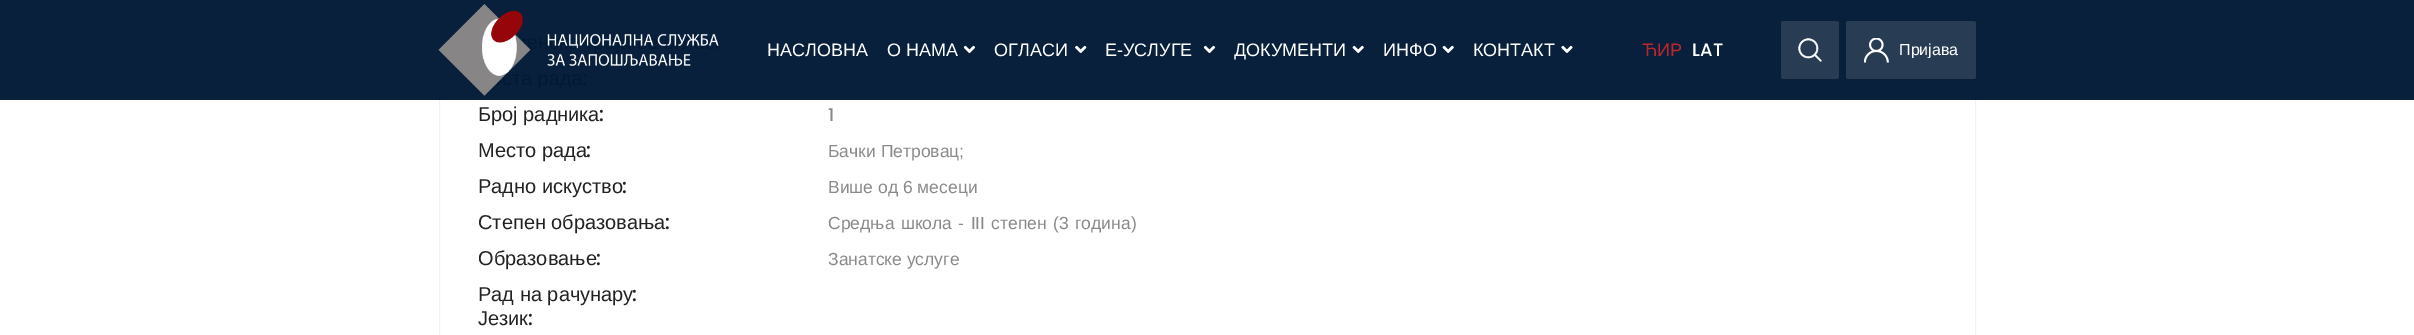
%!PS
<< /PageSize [2414 335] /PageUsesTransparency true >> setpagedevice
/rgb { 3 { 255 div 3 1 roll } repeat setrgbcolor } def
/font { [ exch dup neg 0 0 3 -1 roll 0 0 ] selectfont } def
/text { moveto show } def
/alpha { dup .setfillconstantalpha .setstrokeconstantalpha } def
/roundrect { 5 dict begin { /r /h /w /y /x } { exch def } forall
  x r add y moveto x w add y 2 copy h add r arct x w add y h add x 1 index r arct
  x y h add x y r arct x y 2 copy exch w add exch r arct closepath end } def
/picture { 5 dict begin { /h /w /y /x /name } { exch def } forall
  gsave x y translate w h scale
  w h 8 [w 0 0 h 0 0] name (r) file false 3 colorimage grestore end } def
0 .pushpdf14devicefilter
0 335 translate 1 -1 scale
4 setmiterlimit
255 255 255 rgb
0 0 2414 335 rectfill
242 243 244 rgb
439.5 -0.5 1536 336 rectstroke
440 3 1535 1 rectfill
0.97 alpha
0 25 53 rgb
0 0 2414 100 rectfill
1 alpha
(img_01.rgb) 438 3 281 93 picture
(img_02.rgb) 963 45 13 8 picture
(img_03.rgb) 1075 45 12 8 picture
(img_04.rgb) 1203 45 13 8 picture
(img_05.rgb) 1352 45 12 8 picture
(img_05.rgb) 1442 45 12 8 picture
(img_06.rgb) 1561 45 12 8 picture
40 61 84 rgb
1781 21 58 58 2.5 roundrect fill
(img_07.rgb) 1798 38 24 24 picture
1846 21 130 58 2.5 roundrect fill
(img_08.rgb) 1864 38 25 25 picture
/LiberationSans-Regular 18 font
255 255 255 rgb
(НАСЛОВНА) 767 56 text
(О НАМА) 887 56 text
(ОГЛАСИ) 994 56 text
(Е-УСЛУГЕ) 1105 56 text
(ДОКУМЕНТИ) 1234 56 text
(ИНФО) 1383 56 text
(КОНТАКТ) 1473 56 text
191 37 43 rgb
(ЋИР) 1642 56 text
/Poppins-Medium 18 font
255 255 255 rgb
(LAT) 1692 56 text
gsave
1899 43 60 15 rectclip
/LiberationSans-Regular 16 font
(Пријава) 1899 55 text
grestore
/LiberationSans-Regular 20 font
34 34 34 rgb
(Број радника) 478 121 text
/Poppins-Medium 20 font
(:) 599 121 text
/Poppins-Medium 17.5 font
137 137 137 rgb
(1) 828 121 text
/LiberationSans-Regular 20 font
34 34 34 rgb
(Место рада) 478 157 text
/Poppins-Medium 20 font
(:) 586 157 text
/LiberationSans-Regular 17.5 font
137 137 137 rgb
(Бачки Петровац;) 828 157 text
/LiberationSans-Regular 20 font
34 34 34 rgb
(Радно искуство) 478 193 text
/Poppins-Medium 20 font
(:) 622 193 text
/LiberationSans-Regular 17.5 font
137 137 137 rgb
(Више од 6 месеци) 828 193 text
/LiberationSans-Regular 20 font
34 34 34 rgb
(Степен образовања) 478 229 text
/Poppins-Medium 20 font
(:) 665 229 text
/LiberationSans-Regular 17.5 font
137 137 137 rgb
828 229 moveto 1.5 0 32 (Средња школа - III степен \(3 година\)) widthshow
/LiberationSans-Regular 20 font
34 34 34 rgb
(Образовање) 478 265 text
/Poppins-Medium 20 font
(:) 596 265 text
/LiberationSans-Regular 17.5 font
137 137 137 rgb
(Занатске услуге) 828 265 text
/LiberationSans-Regular 20 font
34 34 34 rgb
(Рад на рачунару) 478 301 text
/Poppins-Medium 20 font
(:) 632 301 text
/LiberationSans-Regular 20 font
(Језик) 478 325 text
/Poppins-Medium 20 font
(:) 528 325 text
.poppdf14devicefilter showpage
